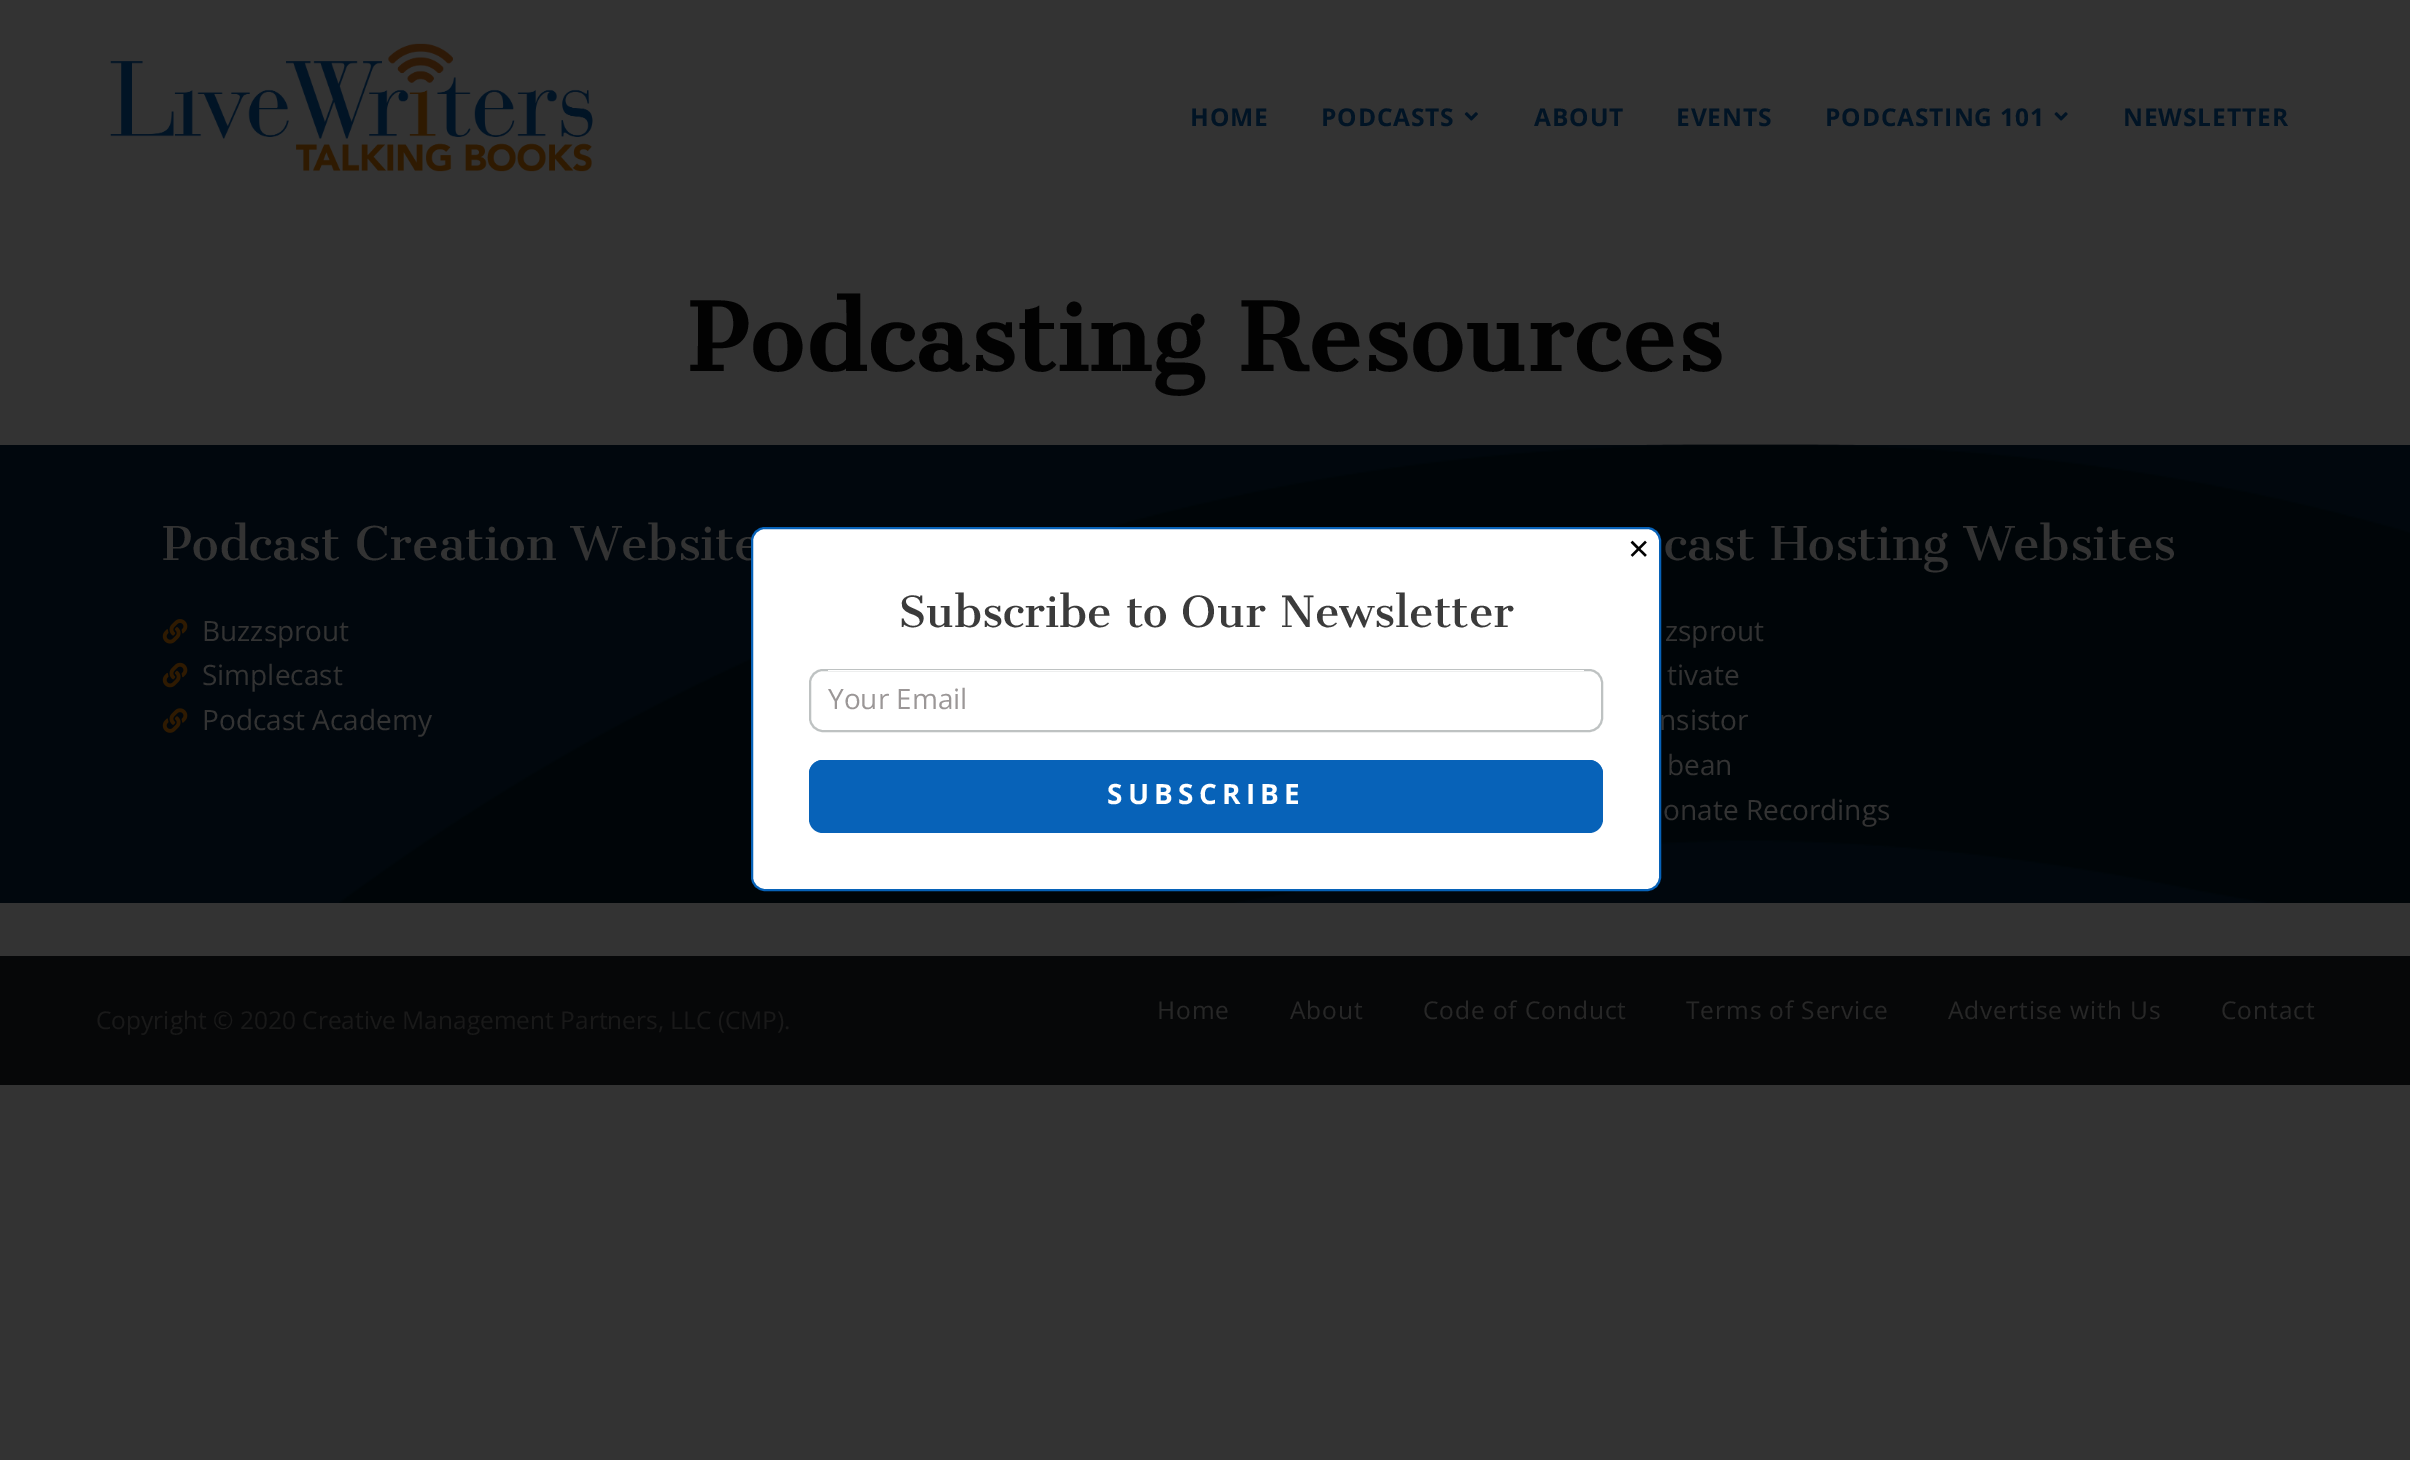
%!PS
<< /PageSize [2410 1460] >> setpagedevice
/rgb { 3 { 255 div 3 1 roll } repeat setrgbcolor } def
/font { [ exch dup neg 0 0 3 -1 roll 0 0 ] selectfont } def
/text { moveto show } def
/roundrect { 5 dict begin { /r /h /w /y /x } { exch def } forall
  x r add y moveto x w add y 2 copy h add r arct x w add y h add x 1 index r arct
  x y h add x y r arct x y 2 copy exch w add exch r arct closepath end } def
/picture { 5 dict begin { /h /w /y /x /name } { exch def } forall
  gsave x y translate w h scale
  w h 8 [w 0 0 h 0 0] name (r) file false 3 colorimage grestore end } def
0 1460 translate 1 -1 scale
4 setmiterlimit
51 51 51 rgb
0 0 2410 1460 rectfill
(img_01.rgb) 110 43 483 129 picture
(img_02.rgb) 1464 112 14 9 picture
(img_03.rgb) 2054 112 14 9 picture
1 7 13 rgb
0 445 2410 458 rectfill
(img_04.rgb) 339 444 2071 459 picture
(img_05.rgb) 162 619 26 25 picture
(img_06.rgb) 162 662 26 26 picture
(img_07.rgb) 162 708 26 25 picture
6 7 8 rgb
0 956 2410 129 rectfill
/OpenSans-Bold 24.5 font
1 20 37 rgb
1190 126 moveto 0.9 0 (HOME) ashow
1321 126 moveto 0.9 0 (PODCASTS) ashow
1534 126 moveto 0.9 0 (ABOUT) ashow
1676 126 moveto 0.9 0 (EVENTS) ashow
1825 126 moveto 0.9 0 (PODCASTING 101) ashow
2123 126 moveto 0.9 0 (NEWSLETTER) ashow
/CantataOne-Bold 91 font
2 2 2 rgb
688 371 moveto 1.75 0 (Podcasting Resources) ashow
/CantataOne-Regular 45.5 font
51 51 51 rgb
(Podcast Creation Website) 162 560 text
/OpenSans-Regular 28 font
(Buzzsprout) 202 641 text
(Simplecast) 202 685 text
(Podcast Academy) 202 730 text
/CantataOne-Regular 45.5 font
(cast Hosting Websites) 1664 560 text
/OpenSans-Regular 28 font
(zsprout) 1665 641 text
(tivate) 1667 685 text
(nsistor) 1659 730 text
(bean) 1667 775 text
(onate Recordings) 1663 820 text
/OpenSans-Regular 24.5 font
25 25 25 rgb
(Copyright © 2020 Creative Management Partners, LLC \(CMP\).) 96 1029 text
39 39 39 rgb
1157 1019 moveto 0.9 0 (Home) ashow
1290 1019 moveto 0.9 0 (About) ashow
1423 1019 moveto 0.9 0 (Code of Conduct) ashow
1686 1019 moveto 0.9 0 (Terms of Service) ashow
1948 1019 moveto 0.9 0 (Advertise with Us) ashow
2221 1019 moveto 0.9 0 (Contact) ashow
255 255 255 rgb
752 528 908 362 13 roundrect gsave fill grestore
7 98 184 rgb
2 setlinewidth
stroke
/DejaVuSans-Regular 28 font
2 2 2 rgb
(✕) 1627 559 text
/CantataOne-Regular 42 font
59 59 59 rgb
(Subscribe to Our Newsletter) 898 627 text
190 194 194 rgb
810 670 792 61 13 roundrect stroke
255 255 255 rgb
828 670 756 1 rectfill
/OpenSans-Regular 28 font
155 151 151 rgb
(Your Email) 828 709 text
7 98 184 rgb
809 760 794 73 14 roundrect fill
809 760 794 70 14 roundrect fill
/OpenSans-Bold 28 font
255 255 255 rgb
1107 804 moveto 5.25 0 (SUBSCRIBE) ashow
showpage
